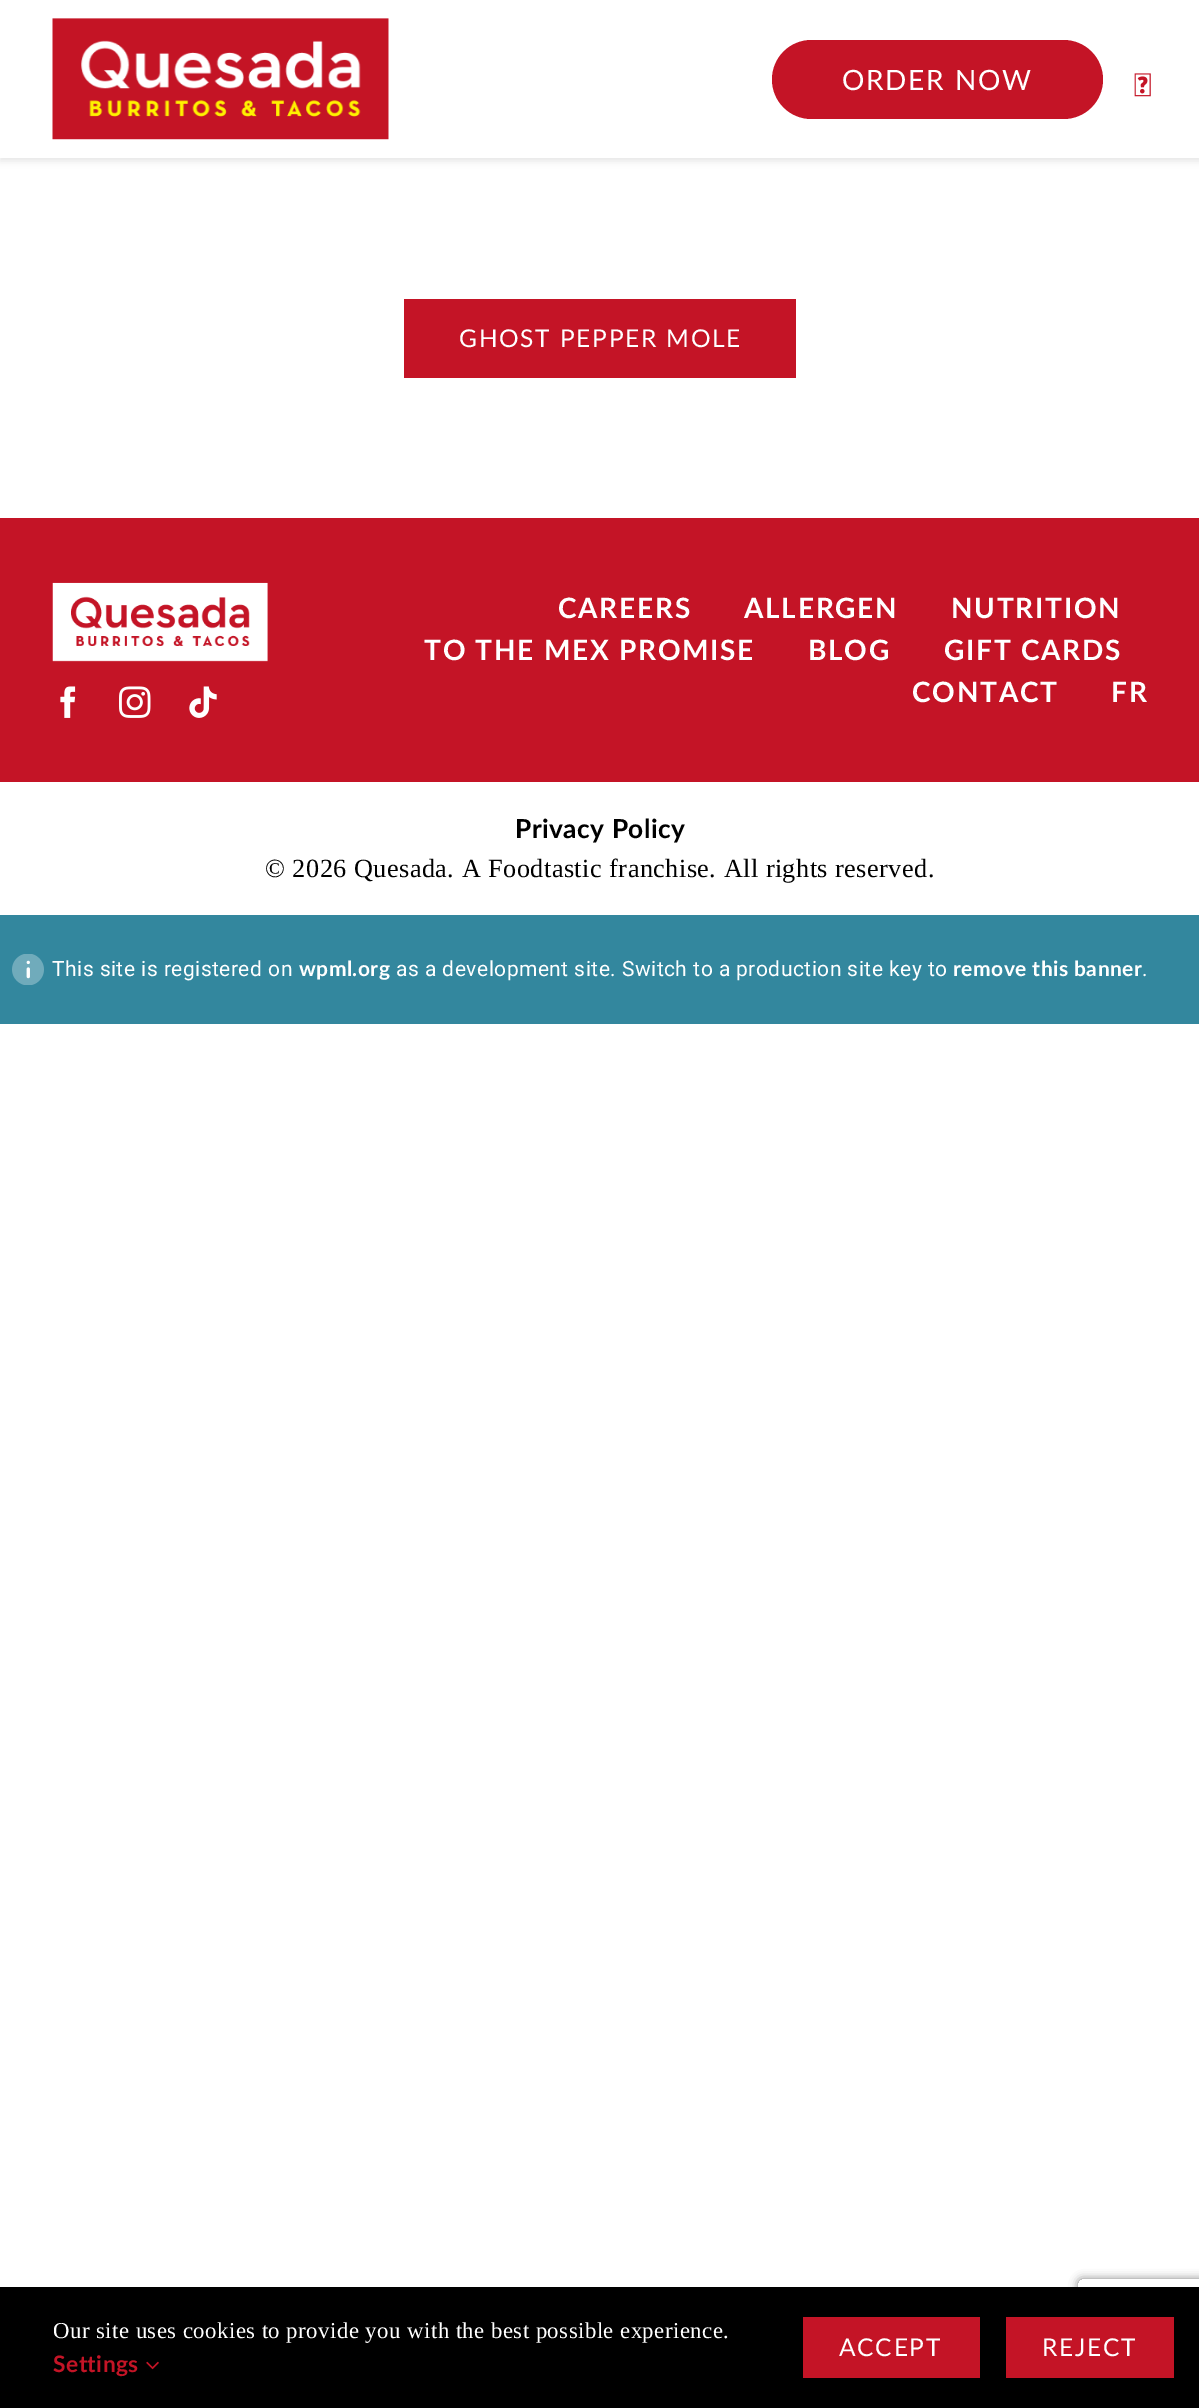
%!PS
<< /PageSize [1199 2408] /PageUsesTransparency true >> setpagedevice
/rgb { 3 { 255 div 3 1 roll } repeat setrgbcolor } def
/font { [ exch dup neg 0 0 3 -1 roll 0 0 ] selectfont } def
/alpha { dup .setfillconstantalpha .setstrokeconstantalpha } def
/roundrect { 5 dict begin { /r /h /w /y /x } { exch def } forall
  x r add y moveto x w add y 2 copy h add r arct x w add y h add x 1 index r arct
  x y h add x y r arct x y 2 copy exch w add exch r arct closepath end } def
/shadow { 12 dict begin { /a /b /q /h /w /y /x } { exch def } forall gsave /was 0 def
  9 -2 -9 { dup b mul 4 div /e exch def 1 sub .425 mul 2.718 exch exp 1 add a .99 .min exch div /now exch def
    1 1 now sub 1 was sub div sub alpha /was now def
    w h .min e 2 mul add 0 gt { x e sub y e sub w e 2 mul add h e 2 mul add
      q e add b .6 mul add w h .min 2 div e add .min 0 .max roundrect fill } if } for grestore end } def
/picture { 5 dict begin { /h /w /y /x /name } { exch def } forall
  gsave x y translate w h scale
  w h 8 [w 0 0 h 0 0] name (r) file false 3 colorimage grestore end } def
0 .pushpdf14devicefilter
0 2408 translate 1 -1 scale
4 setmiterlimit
255 255 255 rgb
0 0 1199 2408 rectfill
gsave
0 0 moveto 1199 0 rlineto 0 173 rlineto -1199 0 rlineto closepath 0 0 moveto 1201 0 rlineto 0 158 rlineto -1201 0 rlineto closepath eoclip newpath
0 0 0 rgb
0 4 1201 157 0 3.5 0.1 shadow
grestore
(img_01.rgb) 52 18 337 122 picture
196 20 38 rgb
772 40 331 79 39.5 roundrect fill
(img_02.rgb) 1134 73 17 24 picture
404 299 392 79 rectfill
0 518 1199 264 rectfill
(img_03.rgb) 52 582 216 80 picture
(img_04.rgb) 60 686 16 32 picture
(img_05.rgb) 119 686 32 32 picture
(img_06.rgb) 189 686 28 32 picture
51 135 158 rgb
0 915 1199 109 rectfill
(img_07.rgb) 12 954 32 31 picture
gsave
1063 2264 moveto 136 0 rlineto 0 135 rlineto -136 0 rlineto closepath 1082 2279 moveto 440 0 rlineto 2 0 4 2 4 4 rcurveto 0 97 rlineto 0 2 -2 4 -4 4 rcurveto -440 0 rlineto -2 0 -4 -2 -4 -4 rcurveto 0 -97 rlineto 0 -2 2 -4 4 -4 rcurveto closepath eoclip newpath
128 128 128 rgb
1078 2279 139 105 4 4.5 1 shadow
grestore
0 0 0 rgb
0 2287 1199 121 rectfill
(img_08.rgb) 146 2361 13 9 picture
196 20 38 rgb
803 2317 177 61 rectfill
1006 2317 168 61 rectfill
/Lato-Regular 28 font
255 255 255 rgb
842 90 moveto 1.75 0 (ORDER NOW) ashow
/Lato-Regular 24.5 font
459 347 moveto 1.75 0 (GHOST PEPPER MOLE) ashow
/Lato-Bold 28 font
558 618 moveto 1.75 0 (CAREERS) ashow
744 618 moveto 1.75 0 (ALLERGEN) ashow
951 618 moveto 1.75 0 (NUTRITION) ashow
424 660 moveto 1.75 0 (TO THE MEX PROMISE) ashow
808 660 moveto 1.75 0 (BLOG) ashow
944 660 moveto 1.75 0 (GIFT CARDS) ashow
912 702 moveto 1.75 0 (CONTACT) ashow
1111 702 moveto 1.75 0 (FR) ashow
/Lato-Bold 26.25 font
0 0 0 rgb
515 838 moveto 0.47 0 (Privacy Policy) ashow
/LiberationSerif-Regular 26.25 font
265 877 moveto 0.47 0 (© 2026 Quesada. A Foodtastic franchise. All rights reserved.) ashow
/Roboto-Regular 21 font
255 255 255 rgb
52 976 moveto 0.47 0 (This site is registered on) ashow
/Lato-Bold 21 font
299 976 moveto 0.47 0 (wpml.org) ashow
/Roboto-Regular 21 font
396 976 moveto 0.47 0 (as a development site. Switch to a production site key to) ashow
/Lato-Bold 21 font
953 976 moveto 0.47 0 (remove this banner) ashow
/Roboto-Regular 21 font
1142 976 moveto 0.47 0 (.) ashow
/LiberationSerif-Regular 22.75 font
53 2338 moveto 0.47 0 (Our site uses cookies to provide you with the best possible experience.) ashow
/Lato-Bold 22.75 font
196 20 38 rgb
53 2372 moveto 0.47 0 (Settings) ashow
/Lato-Regular 24.5 font
255 255 255 rgb
839 2356 moveto 1.75 0 (ACCEPT) ashow
1042 2356 moveto 1.75 0 (REJECT) ashow
.poppdf14devicefilter showpage
